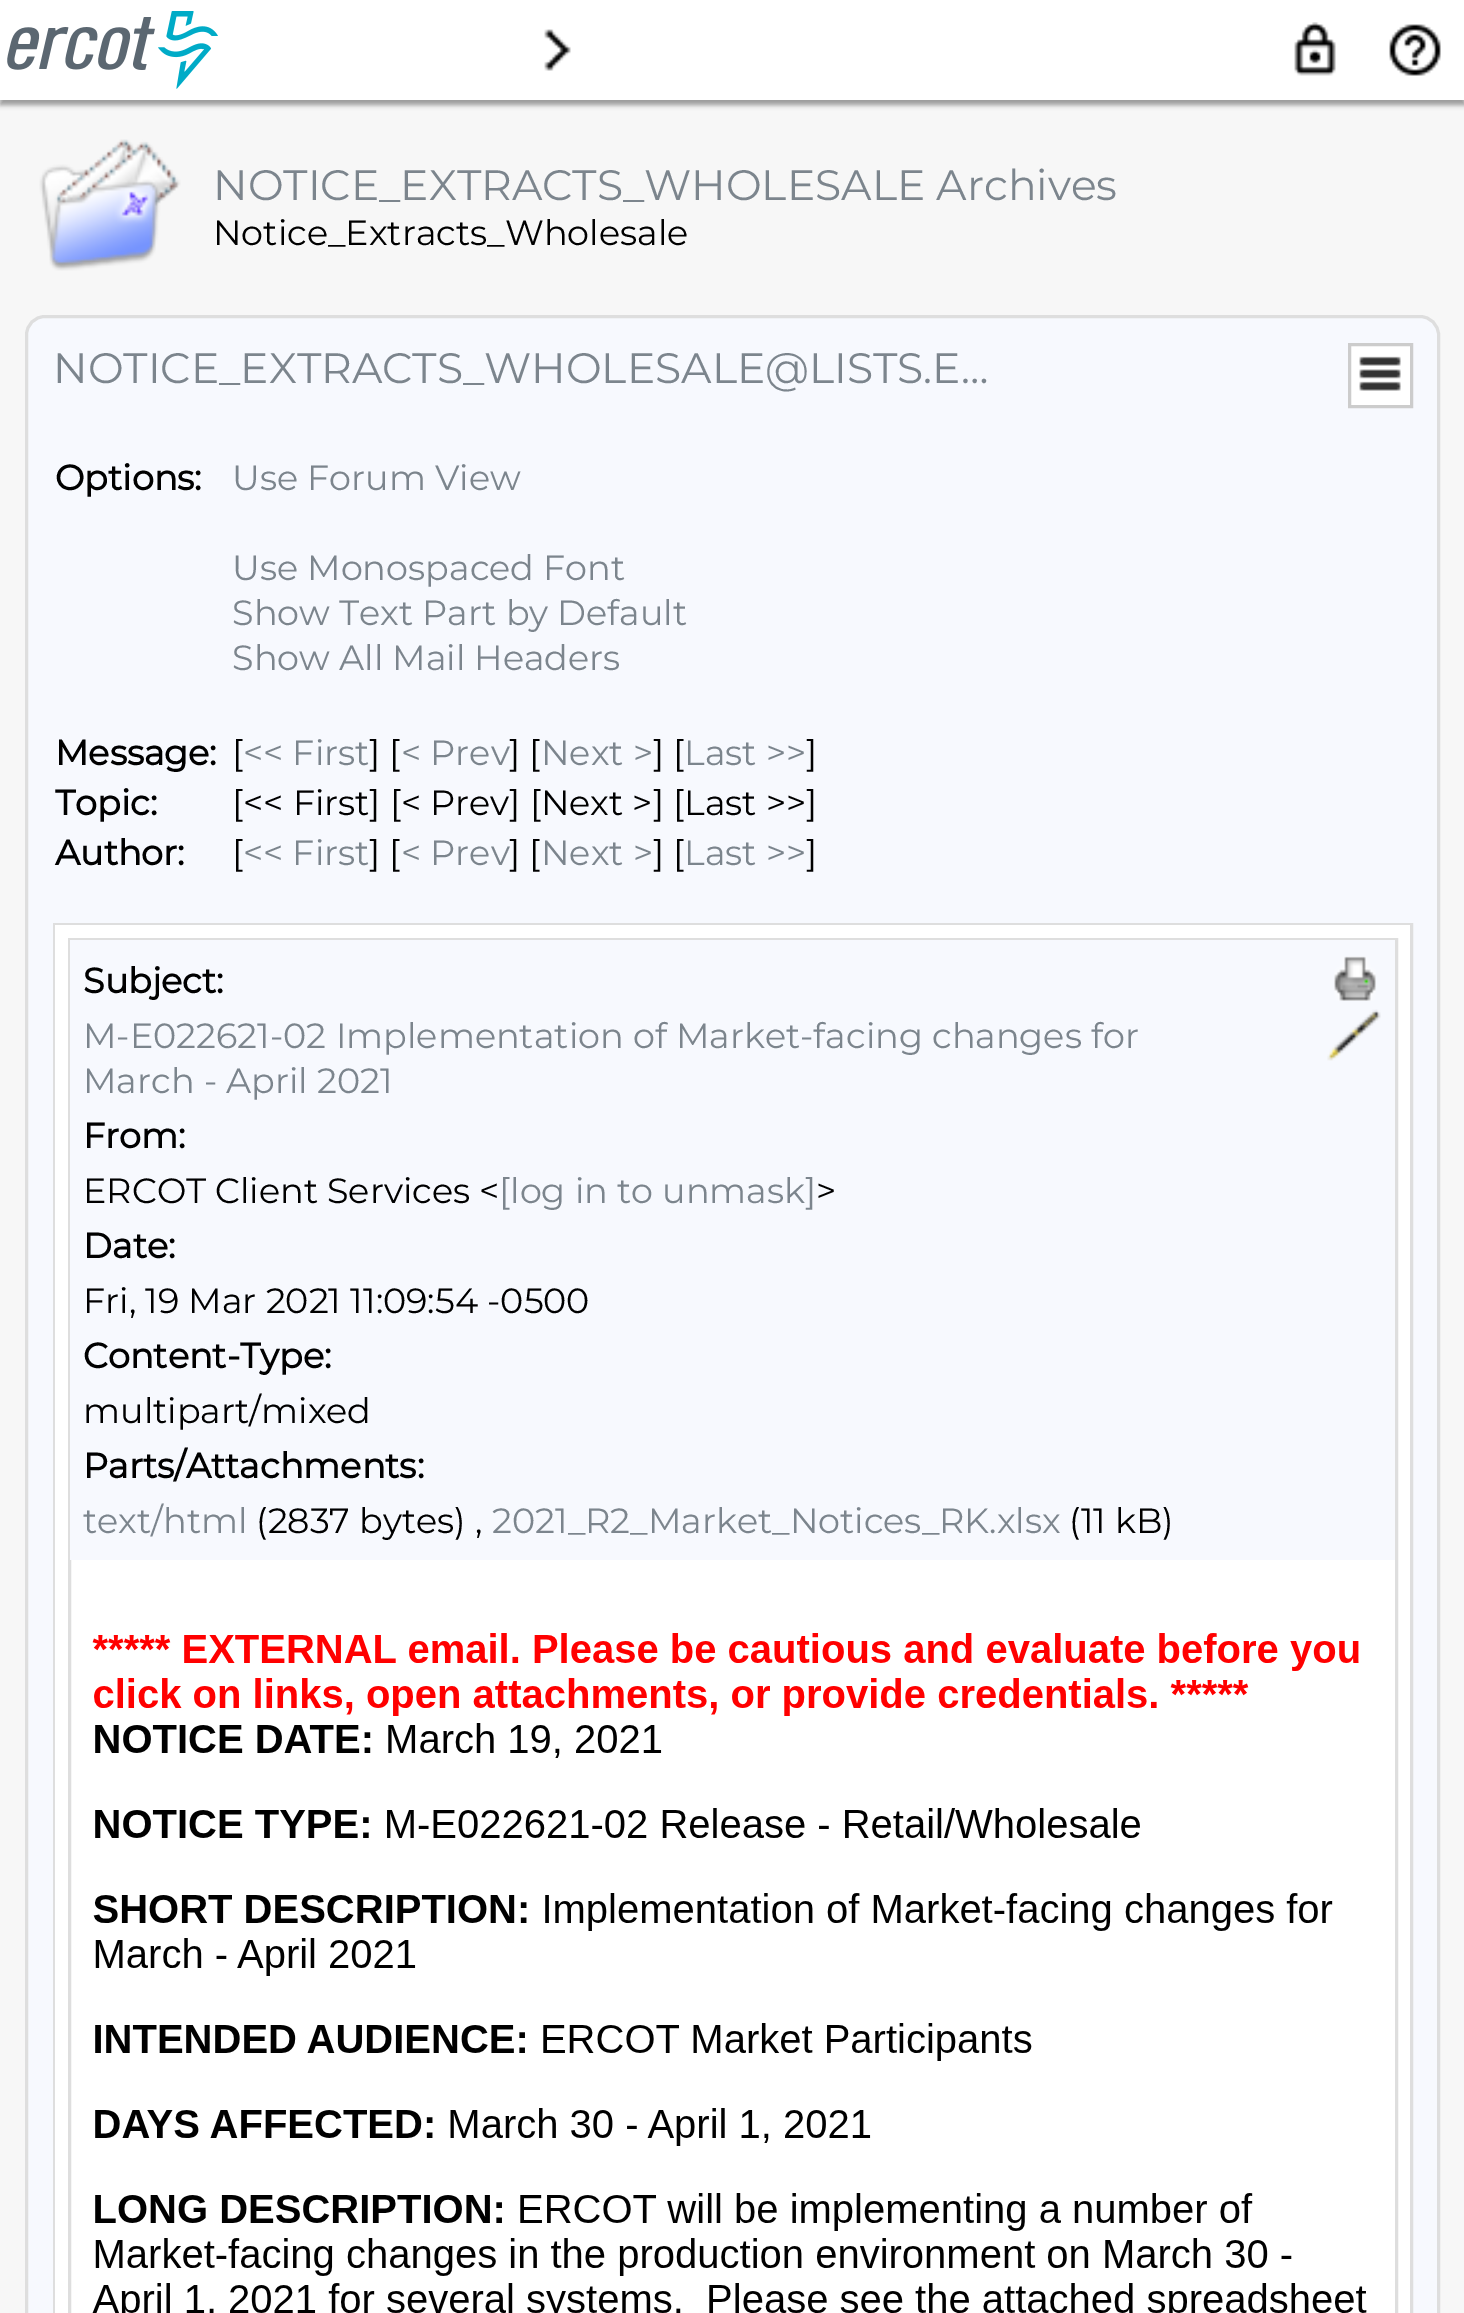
%!PS
<< /PageSize [1464 2313] /PageUsesTransparency true >> setpagedevice
/rgb { 3 { 255 div 3 1 roll } repeat setrgbcolor } def
/font { [ exch dup neg 0 0 3 -1 roll 0 0 ] selectfont } def
/text { moveto show } def
/alpha { dup .setfillconstantalpha .setstrokeconstantalpha } def
/roundrect { 5 dict begin { /r /h /w /y /x } { exch def } forall
  x r add y moveto x w add y 2 copy h add r arct x w add y h add x 1 index r arct
  x y h add x y r arct x y 2 copy exch w add exch r arct closepath end } def
/shadow { 12 dict begin { /a /b /q /h /w /y /x } { exch def } forall gsave /was 0 def
  9 -2 -9 { dup b mul 4 div /e exch def 1 sub .425 mul 2.718 exch exp 1 add a .99 .min exch div /now exch def
    1 1 now sub 1 was sub div sub alpha /was now def
    w h .min e 2 mul add 0 gt { x e sub y e sub w e 2 mul add h e 2 mul add
      q e add b .6 mul add w h .min 2 div e add .min 0 .max roundrect fill } if } for grestore end } def
/picture { 5 dict begin { /h /w /y /x /name } { exch def } forall
  gsave x y translate w h scale
  w h 8 [w 0 0 h 0 0] name (r) file false 3 colorimage grestore end } def
0 .pushpdf14devicefilter
0 2313 translate 1 -1 scale
4 setmiterlimit
247 247 247 rgb
0 0 1464 2313 rectfill
153 153 153 rgb
0 5 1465 100 0 2.5 1 shadow
255 255 255 rgb
0 0 1464 100 rectfill
(img_01.rgb) 7 11 211 78 picture
(img_02.rgb) 544 29 27 42 picture
(img_03.rgb) 1294 22 42 54 picture
(img_04.rgb) 1389 24 52 52 picture
(img_05.rgb) 39 139 142 132 picture
247 249 254 rgb
26.5 316.5 1412 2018 18.5 roundrect gsave fill grestore
222 222 222 rgb
3 setlinewidth
stroke
255 255 255 rgb
1349.5 344.5 moveto 62 0 rlineto 0 62 rlineto -62 0 rlineto closepath gsave fill grestore
204 204 204 rgb
stroke
(img_06.rgb) 1359 356 42 35 picture
222 222 222 rgb
54.5 924.5 1357 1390 rectstroke
255 255 255 rgb
55 925 1355 1388 rectfill
222 222 222 rgb
69.5 939.5 1327 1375 rectstroke
247 249 254 rgb
70 940 1325 620 rectfill
(img_07.rgb) 1334 956 42 45 picture
(img_08.rgb) 1327 1009 54 52 picture
(img_09.rgb) 92 1633 1275 680 picture
/Montserrat-Thin 42.5 font
124 133 141 rgb
(NOTICE_EXTRACTS_WHOLESALE Archives) 213 200 text
/Montserrat-Thin 35 font
0 0 0 rgb
(Notice_Extracts_Wholesale) 213 245 text
/Montserrat-Thin 42.5 font
124 133 141 rgb
(NOTICE_EXTRACTS_WHOLESALE@LISTS.E…) 53 383 text
/Montserrat-Bold 35 font
0 0 0 rgb
(Options:) 55 490 text
/Montserrat-Thin 35 font
124 133 141 rgb
(Use Forum View) 232 490 text
(Use Monospaced Font) 232 580 text
(Show Text Part by Default) 232 625 text
(Show All Mail Headers) 232 670 text
/Montserrat-Bold 35 font
0 0 0 rgb
(Message:) 55 765 text
/Montserrat-Thin 35 font
([) 232 765 text
124 133 141 rgb
(<< First) 243 765 text
0 0 0 rgb
(] [) 369 765 text
124 133 141 rgb
(< Prev) 401 765 text
0 0 0 rgb
(] [) 509 765 text
124 133 141 rgb
(Next >) 541 765 text
0 0 0 rgb
(] [) 653 765 text
124 133 141 rgb
(Last >>) 684 765 text
0 0 0 rgb
(]) 806 765 text
/Montserrat-Bold 35 font
(Topic:) 55 815 text
/Montserrat-Thin 35 font
([<< First] [< Prev] [Next >] [Last >>]) 232 815 text
/Montserrat-Bold 35 font
(Author:) 55 865 text
/Montserrat-Thin 35 font
([) 232 865 text
124 133 141 rgb
(<< First) 243 865 text
0 0 0 rgb
(] [) 369 865 text
124 133 141 rgb
(< Prev) 401 865 text
0 0 0 rgb
(] [) 509 865 text
124 133 141 rgb
(Next >) 541 865 text
0 0 0 rgb
(] [) 653 865 text
124 133 141 rgb
(Last >>) 684 865 text
0 0 0 rgb
(]) 806 865 text
/Montserrat-Bold 35 font
(Subject:) 83 993 text
/Montserrat-Thin 35 font
124 133 141 rgb
(M-E022621-02 Implementation of Market-facing changes for) 83 1048 text
(March - April 2021) 83 1093 text
/Montserrat-Bold 35 font
0 0 0 rgb
(From:) 83 1148 text
/Montserrat-Thin 35 font
(ERCOT Client Services <) 83 1203 text
124 133 141 rgb
([log in to unmask]) 499 1203 text
0 0 0 rgb
(>) 816 1203 text
/Montserrat-Bold 35 font
(Date:) 83 1258 text
/Montserrat-Thin 35 font
(Fri, 19 Mar 2021 11:09:54 -0500) 83 1313 text
/Montserrat-Bold 35 font
(Content-Type:) 83 1368 text
/Montserrat-Thin 35 font
(multipart/mixed) 83 1423 text
/Montserrat-Bold 35 font
(Parts/Attachments:) 83 1478 text
/Montserrat-Thin 35 font
124 133 141 rgb
(text/html) 83 1533 text
0 0 0 rgb
(\(2837 bytes\) ,) 256 1533 text
124 133 141 rgb
(2021_R2_Market_Notices_RK.xlsx) 492 1533 text
0 0 0 rgb
(\(11 kB\)) 1069 1533 text
.poppdf14devicefilter showpage
